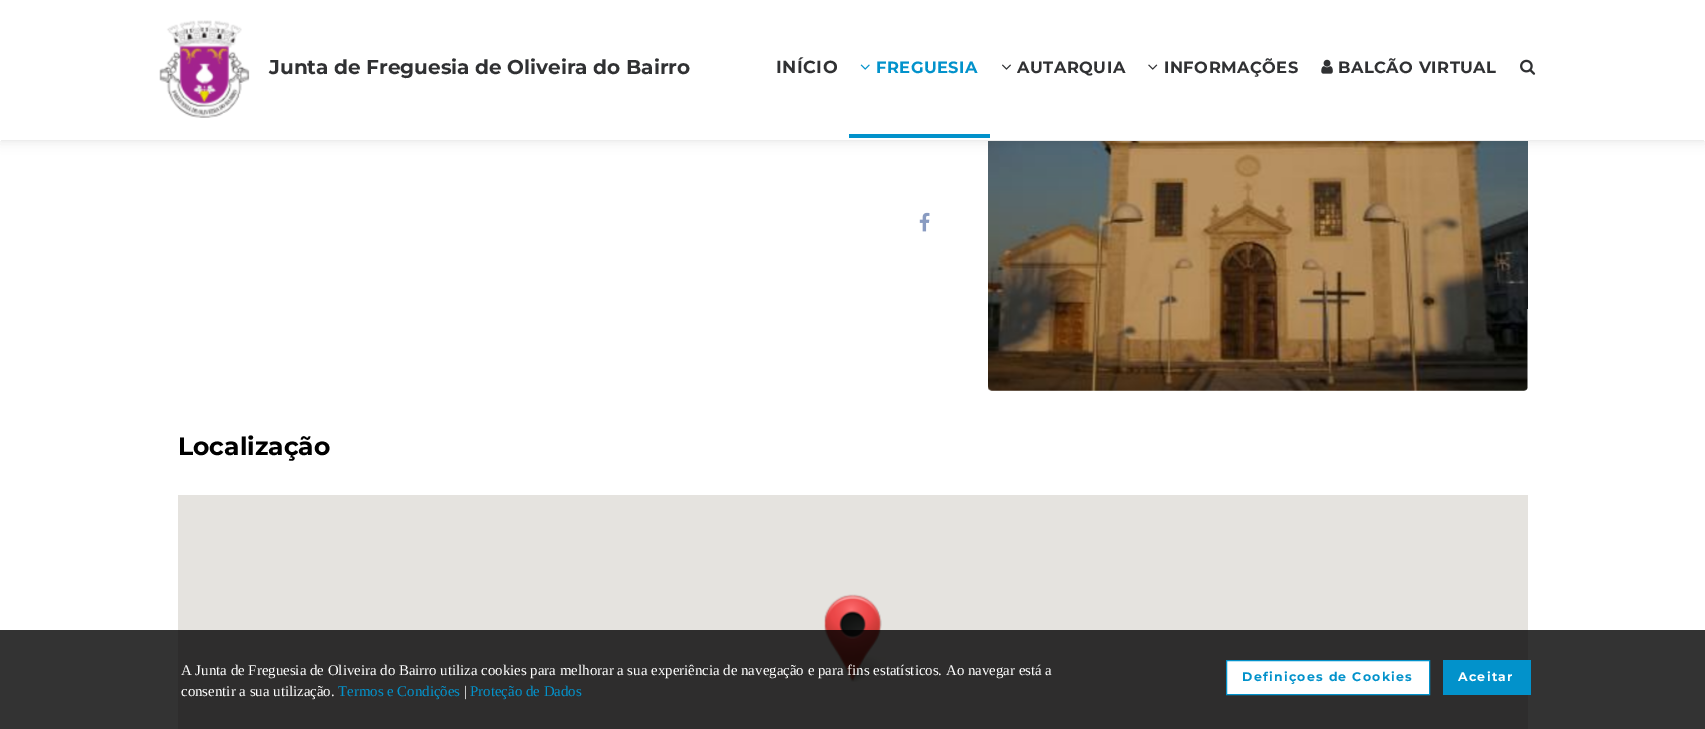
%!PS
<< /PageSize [1705 729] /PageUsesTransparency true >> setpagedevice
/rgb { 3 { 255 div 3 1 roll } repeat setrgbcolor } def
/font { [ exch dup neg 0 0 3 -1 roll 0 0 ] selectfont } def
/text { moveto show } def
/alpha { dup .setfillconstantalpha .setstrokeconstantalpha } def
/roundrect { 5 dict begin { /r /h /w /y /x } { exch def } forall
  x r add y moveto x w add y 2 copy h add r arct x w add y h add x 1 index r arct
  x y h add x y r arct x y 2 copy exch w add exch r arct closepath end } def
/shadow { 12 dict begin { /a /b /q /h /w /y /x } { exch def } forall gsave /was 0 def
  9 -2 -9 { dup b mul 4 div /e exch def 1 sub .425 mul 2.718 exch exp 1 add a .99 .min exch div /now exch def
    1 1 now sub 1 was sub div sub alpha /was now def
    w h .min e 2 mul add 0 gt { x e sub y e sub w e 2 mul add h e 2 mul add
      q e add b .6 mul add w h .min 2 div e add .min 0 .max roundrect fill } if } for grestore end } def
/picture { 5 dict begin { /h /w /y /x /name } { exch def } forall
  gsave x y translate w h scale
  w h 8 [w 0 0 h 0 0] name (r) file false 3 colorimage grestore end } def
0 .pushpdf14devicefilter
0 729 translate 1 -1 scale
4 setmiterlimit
255 255 255 rgb
0 0 1705 729 rectfill
(img_08.rgb) 988 141 540 250 picture
0 0 0 rgb
0 0 1705 141 0 6 0.1 shadow
255 255 255 rgb
0 0 1705 141 rectfill
237 237 237 rgb
1 140 1703 1 rectfill
(img_01.rgb) 159 20 91 98 picture
2 146 203 rgb
849 134 141 4 rectfill
(img_02.rgb) 860 64 10 6 picture
(img_03.rgb) 1002 64 9 6 picture
(img_04.rgb) 1148 64 10 6 picture
(img_05.rgb) 1321 59 12 15 picture
(img_06.rgb) 1520 59 16 16 picture
(img_07.rgb) 919 212 11 20 picture
229 227 223 rgb
178 495 1350 234 rectfill
(img_09.rgb) 824 594 62 88 picture
0.8 alpha
0 0 0 rgb
0 630 1705 99 rectfill
1 alpha
255 255 255 rgb
1226.5 660.5 moveto 203 0 rlineto 0 34 rlineto -203 0 rlineto closepath gsave fill grestore
2 146 203 rgb
stroke
1443 660 88 35 rectfill
/Montserrat-Bold 20 font
48 49 51 rgb
(Junta de Freguesia de Oliveira do Bairro) 269 74 text
/Montserrat-Bold 17.5 font
776 73 moveto 0.5 0 (INÍCIO) ashow
/Montserrat-Bold 16.25 font
2 146 203 rgb
876 73 moveto 0.5 0 (FREGUESIA) ashow
48 49 51 rgb
1017 73 moveto 0.5 0 (AUTARQUIA) ashow
1164 73 moveto 0.5 0 (INFORMAÇÕES) ashow
1338 73 moveto 0.5 0 (BALCÃO VIRTUAL) ashow
/Montserrat-Bold 25 font
0 0 0 rgb
(Localização) 178 455 text
/LiberationSerif-Regular 14.88 font
255 255 255 rgb
(A Junta de Freguesia de Oliveira do Bairro utiliza cookies para melhorar a sua experiência de navegação e para fins estatísticos. Ao navegar está a) 181 675 text
(consentir a sua utilização.) 181 696 text
2 146 203 rgb
(Termos e Condições) 338 696 text
255 255 255 rgb
(|) 464 696 text
2 146 203 rgb
(Proteção de Dados) 470 696 text
/Montserrat-Bold 12.5 font
1242 681 moveto 1.25 0 (Definiçoes de Cookies) ashow
255 255 255 rgb
1458 681 moveto 1.25 0 (Aceitar) ashow
.poppdf14devicefilter showpage
